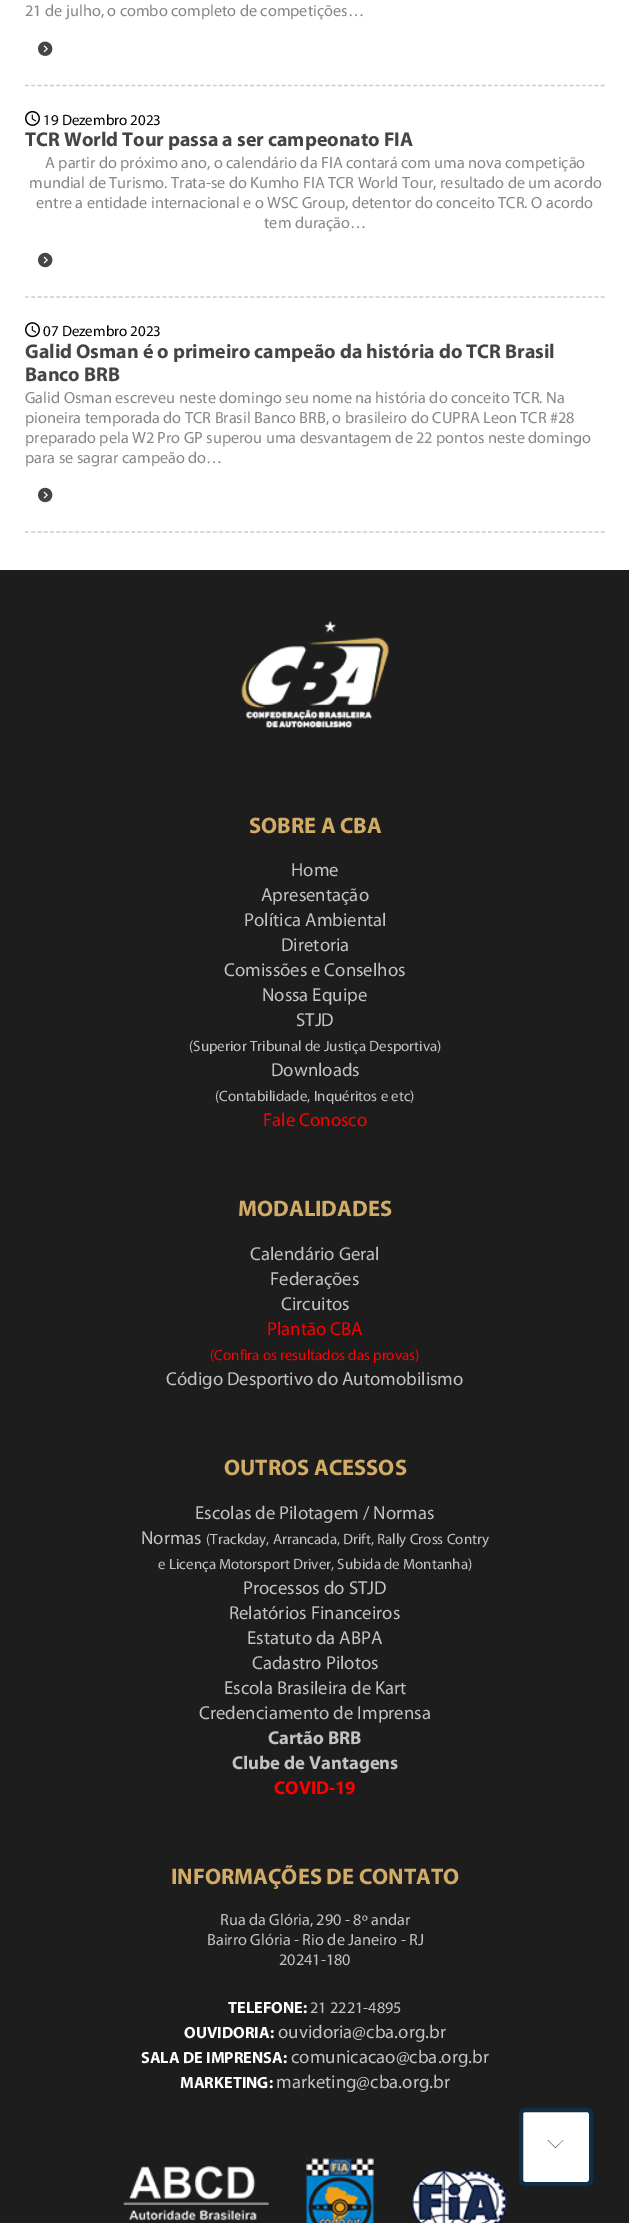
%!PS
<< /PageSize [629 2223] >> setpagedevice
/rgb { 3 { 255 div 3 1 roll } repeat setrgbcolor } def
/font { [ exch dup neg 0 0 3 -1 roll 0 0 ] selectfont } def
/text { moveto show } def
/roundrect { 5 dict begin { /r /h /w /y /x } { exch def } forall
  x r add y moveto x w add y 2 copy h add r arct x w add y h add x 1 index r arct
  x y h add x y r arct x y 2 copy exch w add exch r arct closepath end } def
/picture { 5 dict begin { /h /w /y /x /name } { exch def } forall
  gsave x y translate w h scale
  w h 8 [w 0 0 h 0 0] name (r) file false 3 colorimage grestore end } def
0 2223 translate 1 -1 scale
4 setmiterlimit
255 255 255 rgb
0 0 629 2223 rectfill
204 204 204 rgb
1.2 setlinewidth
[3.75 2.51] 0 setdash
25 85.5 moveto 580 0 rlineto stroke
(img_01.rgb) 38 41 15 15 picture
25 297 moveto 580 0 rlineto stroke
(img_02.rgb) 25 110 15 16 picture
(img_03.rgb) 38 252 15 16 picture
25 532 moveto 580 0 rlineto stroke
(img_04.rgb) 25 322 15 16 picture
(img_03.rgb) 38 487 15 16 picture
29 29 29 rgb
0 570 629 1653 rectfill
(img_05.rgb) 241 621 148 107 picture
(img_06.rgb) 123 2166 146 55 picture
(img_07.rgb) 306 2158 68 65 picture
(img_08.rgb) 411 2169 97 54 picture
255 255 255 rgb
521 2110 70 74 4 roundrect gsave fill grestore
17 47 71 rgb
4 setlinewidth
[] 0 setdash
stroke
548 2140 moveto 7.5 7.5 rlineto 8 -7.5 rlineto -8 8 rlineto -8 -8 rlineto closepath fill
/Myriad-Regular 16.25 font
135 135 135 rgb
(21 de julho, o combo completo de competições…) 25 16 text
/Myriad-Regular 15 font
0 0 0 rgb
(19 Dezembro 2023) 43 125 text
/Myriad-Bold 20 font
68 69 69 rgb
(TCR World Tour passa a ser campeonato FIA) 25 146 text
/Myriad-Regular 16.25 font
135 135 135 rgb
(A partir do próximo ano, o calendário da FIA contará com uma nova competição) 45 168 text
(mundial de Turismo. Trata-se do Kumho FIA TCR World Tour, resultado de um acordo) 29 188 text
(entre a entidade internacional e o WSC Group, detentor do conceito TCR. O acordo) 36 208 text
(tem duração…) 264 228 text
/Myriad-Regular 15 font
0 0 0 rgb
(07 Dezembro 2023) 43 336 text
/Myriad-Bold 20 font
68 69 69 rgb
(Galid Osman é o primeiro campeão da história do TCR Brasil) 25 358 text
(Banco BRB) 25 381 text
/Myriad-Regular 16.25 font
135 135 135 rgb
(Galid Osman escreveu neste domingo seu nome na história do conceito TCR. Na) 25 403 text
(pioneira temporada do TCR Brasil Banco BRB, o brasileiro do CUPRA Leon TCR #28) 25 423 text
(preparado pela W2 Pro GP superou uma desvantagem de 22 pontos neste domingo) 25 443 text
(para se sagrar campeão do…) 25 463 text
/Myriad-Bold 22.5 font
210 172 103 rgb
(SOBRE A CBA) 249 833 text
/Myriad-Regular 18.75 font
195 195 195 rgb
(Home) 291 876 text
(Apresentação) 261 901 text
(Política Ambiental) 244 926 text
(Diretoria) 281 951 text
(Comissões e Conselhos) 224 976 text
(Nossa Equipe) 262 1001 text
(STJD) 296 1026 text
/Myriad-Regular 15 font
(\(Superior Tribunal de Justiça Desportiva\)) 189 1051 text
/Myriad-Regular 18.75 font
(Downloads) 271 1076 text
/Myriad-Regular 15 font
(\(Contabilidade, Inquéritos e etc\)) 215 1101 text
/Myriad-Regular 18.75 font
255 0 0 rgb
(Fale Conosco) 263 1126 text
/Myriad-Bold 22.5 font
210 172 103 rgb
(MODALIDADES) 238 1216 text
/Myriad-Regular 18.75 font
195 195 195 rgb
(Calendário Geral) 250 1260 text
(Federações) 270 1285 text
(Circuitos) 281 1310 text
255 0 0 rgb
(Plantão CBA) 267 1335 text
/Myriad-Regular 15 font
(\(Confira os resultados das provas\)) 210 1360 text
/Myriad-Regular 18.75 font
195 195 195 rgb
(Código Desportivo do Automobilismo) 166 1385 text
/Myriad-Bold 22.5 font
210 172 103 rgb
(OUTROS ACESSOS) 224 1475 text
/Myriad-Regular 18.75 font
195 195 195 rgb
(Escolas de Pilotagem / Normas) 195 1519 text
(Normas) 141 1544 text
/Myriad-Regular 15 font
(\(Trackday, Arrancada, Drift, Rally Cross Contry) 206 1544 text
(e Licença Motorsport Driver, Subida de Montanha\)) 158 1569 text
/Myriad-Regular 18.75 font
(Processos do STJD) 243 1594 text
(Relatórios Financeiros) 229 1619 text
(Estatuto da ABPA) 247 1644 text
(Cadastro Pilotos) 252 1669 text
(Escola Brasileira de Kart) 224 1694 text
(Credenciamento de Imprensa) 199 1719 text
/Myriad-Bold 18.75 font
(Cartão BRB) 268 1744 text
(Clube de Vantagens) 232 1769 text
255 0 0 rgb
(COVID-19) 274 1794 text
/Myriad-Bold 22.5 font
210 172 103 rgb
(INFORMAÇÕES DE CONTATO) 171 1884 text
/Myriad-Regular 16.25 font
195 195 195 rgb
(Rua da Glória, 290 - 8º andar) 220 1925 text
(Bairro Glória - Rio de Janeiro - RJ) 207 1945 text
(20241-180) 279 1965 text
/Myriad-Bold 16.25 font
255 255 255 rgb
(TELEFONE:) 228 2013 text
/Myriad-Regular 16.25 font
195 195 195 rgb
(21 2221-4895) 310 2013 text
/Myriad-Bold 16.25 font
255 255 255 rgb
(OUVIDORIA:) 184 2038 text
/Myriad-Regular 18.75 font
195 195 195 rgb
(ouvidoria@cba.org.br) 278 2038 text
/Myriad-Bold 16.25 font
255 255 255 rgb
(SALA DE IMPRENSA:) 141 2063 text
/Myriad-Regular 18.75 font
195 195 195 rgb
(comunicacao@cba.org.br) 291 2063 text
/Myriad-Bold 16.25 font
255 255 255 rgb
(MARKETING:) 180 2088 text
/Myriad-Regular 18.75 font
195 195 195 rgb
(marketing@cba.org.br) 276 2088 text
showpage
